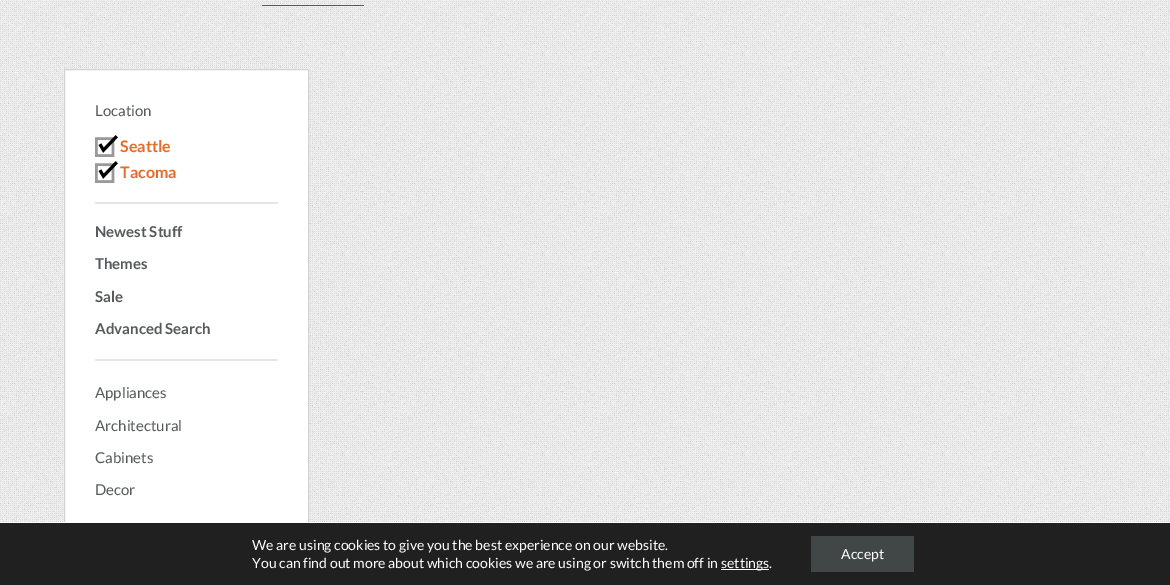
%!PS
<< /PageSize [1170 585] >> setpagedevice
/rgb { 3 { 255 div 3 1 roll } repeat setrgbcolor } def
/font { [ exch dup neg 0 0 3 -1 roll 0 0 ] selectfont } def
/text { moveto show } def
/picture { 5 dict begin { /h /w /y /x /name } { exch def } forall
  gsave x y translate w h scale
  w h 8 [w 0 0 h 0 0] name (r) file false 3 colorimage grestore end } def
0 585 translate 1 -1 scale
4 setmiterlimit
255 255 255 rgb
0 0 1170 585 rectfill
(img_01.rgb) 0 0 1170 29 picture
88 89 91 rgb
262 5 102 1 rectfill
(img_02.rgb) 0 29 1170 493 picture
255 255 255 rgb
65 70 243 452 rectfill
211 211 211 rgb
64.5 69.5 244 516 rectstroke
(img_03.rgb) 95 135 23 22 picture
(img_03.rgb) 95 161 23 22 picture
229 230 230 rgb
95 202 183 2 rectfill
95 359 183 2 rectfill
32 32 32 rgb
0 523 1170 62 rectfill
255 255 255 rgb
64 522 245 1 rectfill
721 569 48 1 rectfill
64 71 70 rgb
811 536 103 36 rectfill
/Lato-Regular 15 font
88 89 91 rgb
(Location) 95 116 text
/Lato-Bold 16 font
230 108 41 rgb
(Seattle) 120 152 text
(Tacoma) 120 178 text
/Lato-Bold 15 font
88 89 91 rgb
(Newest Stuff) 95 237 text
(Themes) 95 269 text
(Sale) 95 302 text
(Advanced Search) 95 334 text
/Lato-Regular 15 font
(Appliances) 95 398 text
(Architectural) 95 431 text
(Cabinets) 95 463 text
(Decor) 95 495 text
/Lato-Regular 14 font
255 255 255 rgb
(We are using cookies to give you the best experience on our website.) 252 550 text
(You can find out more about which cookies we are using or switch them off in) 252 568 text
(settings.) 721 568 text
(Accept) 841 559 text
showpage
